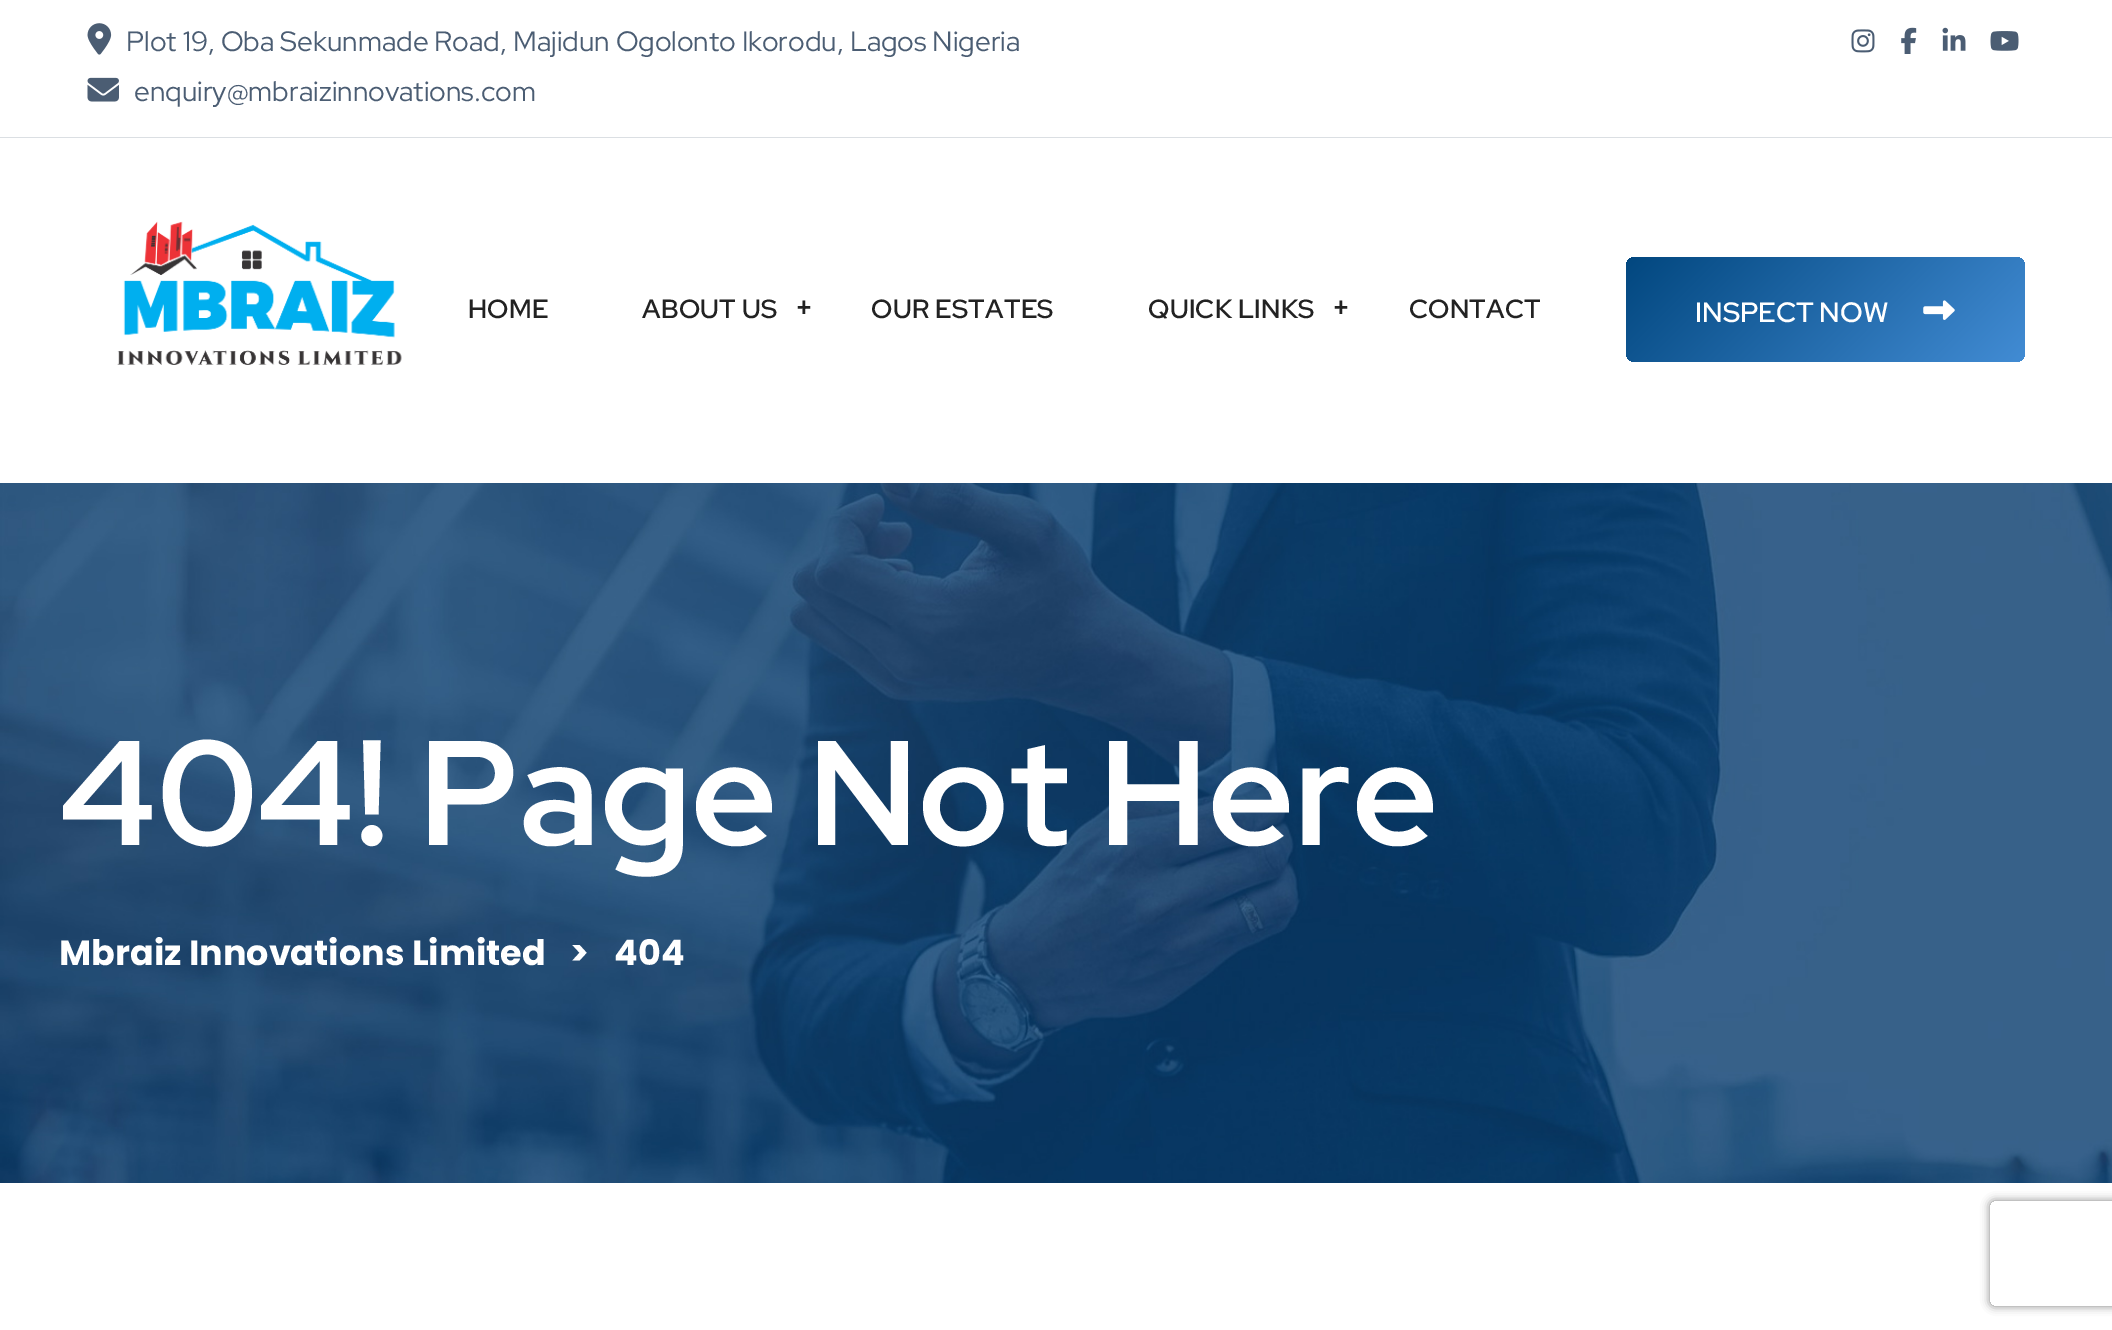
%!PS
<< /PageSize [2112 1330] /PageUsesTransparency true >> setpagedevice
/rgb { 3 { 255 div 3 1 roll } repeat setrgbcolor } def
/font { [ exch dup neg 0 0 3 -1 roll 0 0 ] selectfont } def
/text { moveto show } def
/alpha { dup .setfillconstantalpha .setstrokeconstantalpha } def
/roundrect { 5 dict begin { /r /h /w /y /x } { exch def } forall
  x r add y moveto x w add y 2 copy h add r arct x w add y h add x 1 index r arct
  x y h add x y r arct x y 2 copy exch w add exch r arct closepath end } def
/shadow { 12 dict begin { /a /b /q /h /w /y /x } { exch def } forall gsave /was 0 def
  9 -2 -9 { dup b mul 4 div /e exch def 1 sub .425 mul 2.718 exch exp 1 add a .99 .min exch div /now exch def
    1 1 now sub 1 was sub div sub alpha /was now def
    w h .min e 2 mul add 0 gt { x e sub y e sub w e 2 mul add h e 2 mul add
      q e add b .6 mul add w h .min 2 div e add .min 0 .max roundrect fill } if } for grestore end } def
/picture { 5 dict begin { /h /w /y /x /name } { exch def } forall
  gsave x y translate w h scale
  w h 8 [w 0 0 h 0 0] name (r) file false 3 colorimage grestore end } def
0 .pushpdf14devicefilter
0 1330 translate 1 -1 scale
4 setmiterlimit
255 255 255 rgb
0 0 2112 1330 rectfill
219 223 227 rgb
0 137 2112 1 rectfill
(img_01.rgb) 87 23 25 32 picture
(img_02.rgb) 87 77 32 25 picture
(img_03.rgb) 1851 29 24 24 picture
(img_04.rgb) 1901 27 16 27 picture
(img_05.rgb) 1942 27 24 24 picture
(img_06.rgb) 1990 31 29 20 picture
(img_07.rgb) 117 221 285 144 picture
gsave 1626 257 399 105 9 roundrect clip newpath
<< /ShadingType 2 /ColorSpace /DeviceRGB /Coords [1699 184 1951 436] /Extend [true true] /Function << /FunctionType 2 /Domain [0 1] /C0 [0.008 0.278 0.498] /C1 [0.259 0.549 0.831] /N 1 >> >> shfill grestore
(img_08.rgb) 1923 300 32 20 picture
(img_09.rgb) 0 483 2112 700 picture
gsave
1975 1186 moveto 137 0 rlineto 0 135 rlineto -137 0 rlineto closepath 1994 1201 moveto 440 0 rlineto 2 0 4 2 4 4 rcurveto 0 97 rlineto 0 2 -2 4 -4 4 rcurveto -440 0 rlineto -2 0 -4 -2 -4 -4 rcurveto 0 -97 rlineto 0 -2 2 -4 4 -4 rcurveto closepath eoclip newpath
128 128 128 rgb
1990 1201 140 105 4 4.5 1 shadow
grestore
/RedHatDisplay-Regular 28 font
75 93 115 rgb
(Plot 19, Oba Sekunmade Road, Majidun Ogolonto Ikorodu, Lagos Nigeria) 126 51 text
(enquiry@mbraizinnovations.com) 134 101 text
/RedHatDisplay-SemiBold 26.25 font
34 34 34 rgb
468 318 moveto 0.3 0 (HOME) ashow
642 318 moveto 0.3 0 (ABOUT US) ashow
/RedHatDisplay-Bold 30 font
795 318 moveto 0.3 0 (+) ashow
/RedHatDisplay-SemiBold 26.25 font
871 318 moveto 0.3 0 (OUR ESTATES) ashow
1148 318 moveto 0.3 0 (QUICK LINKS) ashow
/RedHatDisplay-Bold 30 font
1332 318 moveto 0.3 0 (+) ashow
/RedHatDisplay-SemiBold 26.25 font
1409 318 moveto 0.3 0 (CONTACT) ashow
/RedHatDisplay-SemiBold 28 font
255 255 255 rgb
(INSPECT NOW) 1695 322 text
/RedHatDisplay-Bold 148.75 font
(404! Page Not Here) 59 845 text
/Poppins-Bold 35 font
(Mbraiz Innovations Limited) 59 965 text
(>) 570 965 text
(404) 614 965 text
.poppdf14devicefilter showpage
